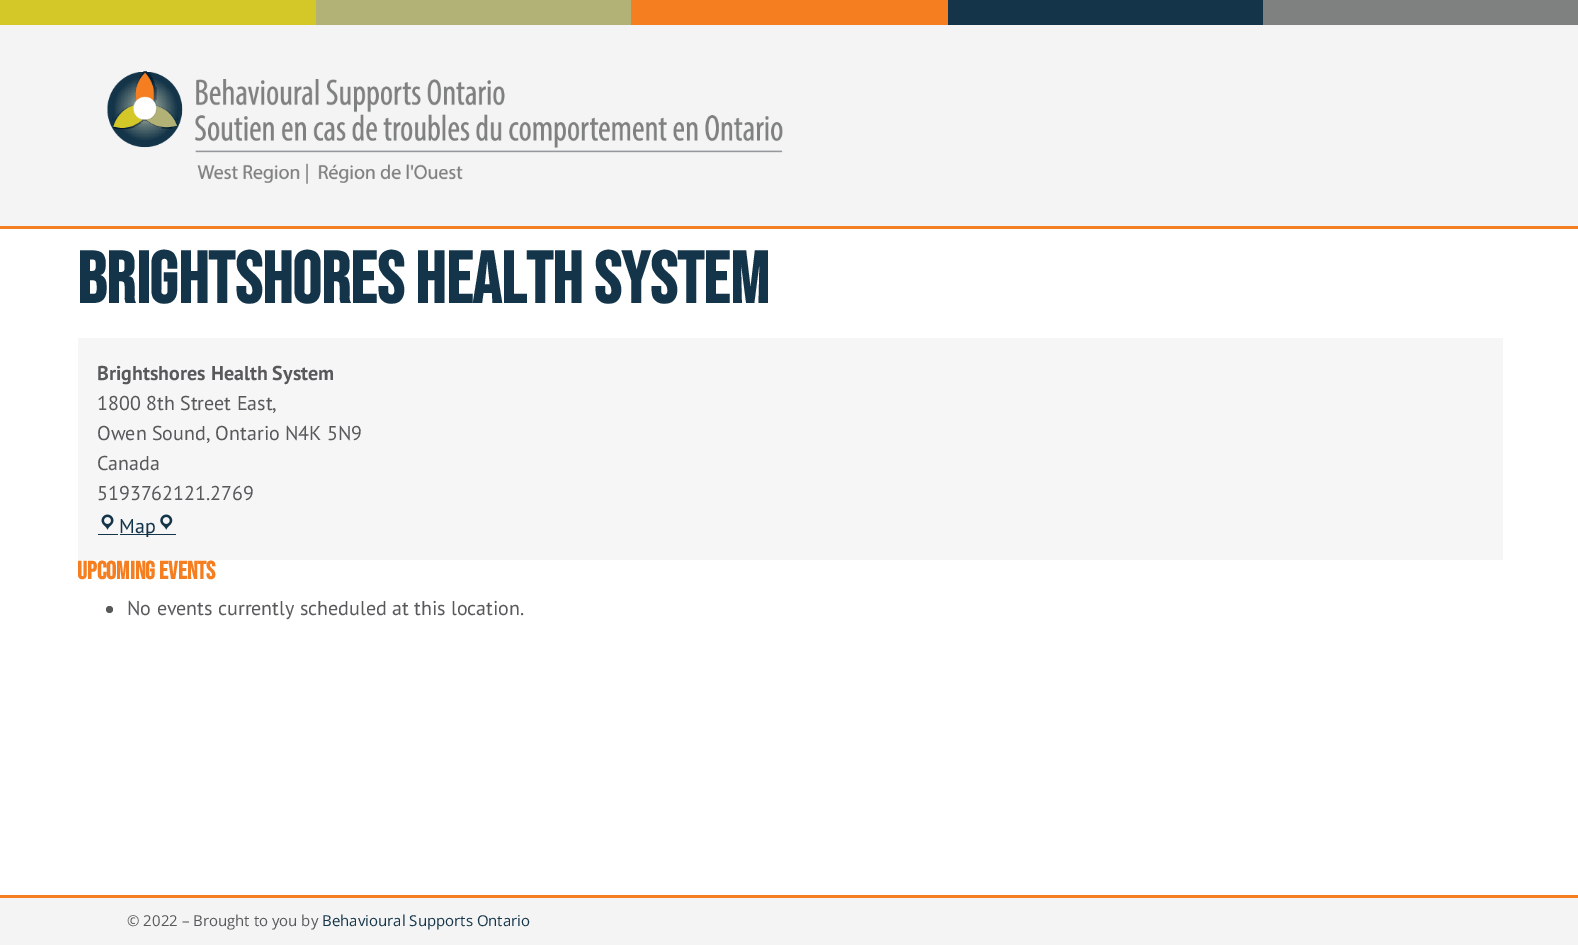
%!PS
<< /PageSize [1578 945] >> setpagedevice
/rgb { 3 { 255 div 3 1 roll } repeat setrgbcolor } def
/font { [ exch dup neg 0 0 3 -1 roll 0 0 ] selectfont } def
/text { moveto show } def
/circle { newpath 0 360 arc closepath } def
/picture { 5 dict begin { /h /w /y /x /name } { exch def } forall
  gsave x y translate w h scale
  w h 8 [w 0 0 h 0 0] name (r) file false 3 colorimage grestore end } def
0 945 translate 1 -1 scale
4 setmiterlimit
255 255 255 rgb
0 0 1578 945 rectfill
211 200 39 rgb
0 0 316 25 rectfill
178 178 118 rgb
316 0 315 25 rectfill
245 126 33 rgb
631 0 317 25 rectfill
20 53 73 rgb
948 0 315 25 rectfill
127 129 129 rgb
1263 0 315 25 rectfill
244 244 244 rgb
0 25 1578 201 rectfill
245 126 33 rgb
0 226 1578 3 rectfill
(img_01.rgb) 107 71 676 113 picture
246 246 246 rgb
78 338 1425 222 rectfill
(img_02.rgb) 101 514 13 16 picture
20 53 73 rgb
98 534 20 1 rectfill
120 534 56 1 rectfill
(img_03.rgb) 160 514 13 16 picture
88 89 91 rgb
109.5 609.5 3.5 circle fill
244 244 244 rgb
0 898 1578 47 rectfill
245 126 33 rgb
0 895 1578 3 rectfill
/BebasNeue-Bold 72.5 font
20 53 73 rgb
(Brightshores Health System) 77 303 text
/PTSans-Bold 20 font
88 89 91 rgb
(Brightshores Health System) 97 380 text
/PTSans-Regular 20 font
(1800 8th Street East,) 97 410 text
(Owen Sound, Ontario N4K 5N9) 97 440 text
(Canada) 97 470 text
(5193762121.2769) 97 500 text
20 53 73 rgb
(Map) 119 533 text
/BebasNeue-Bold 25 font
245 126 33 rgb
(Upcoming Events) 77 579 text
/PTSans-Regular 20 font
88 89 91 rgb
(No events currently scheduled at this location.) 127 615 text
/OpenSans-Regular 15 font
(© 2022 – Brought to you by) 127 926 text
20 53 73 rgb
(Behavioural Supports Ontario) 322 926 text
showpage
